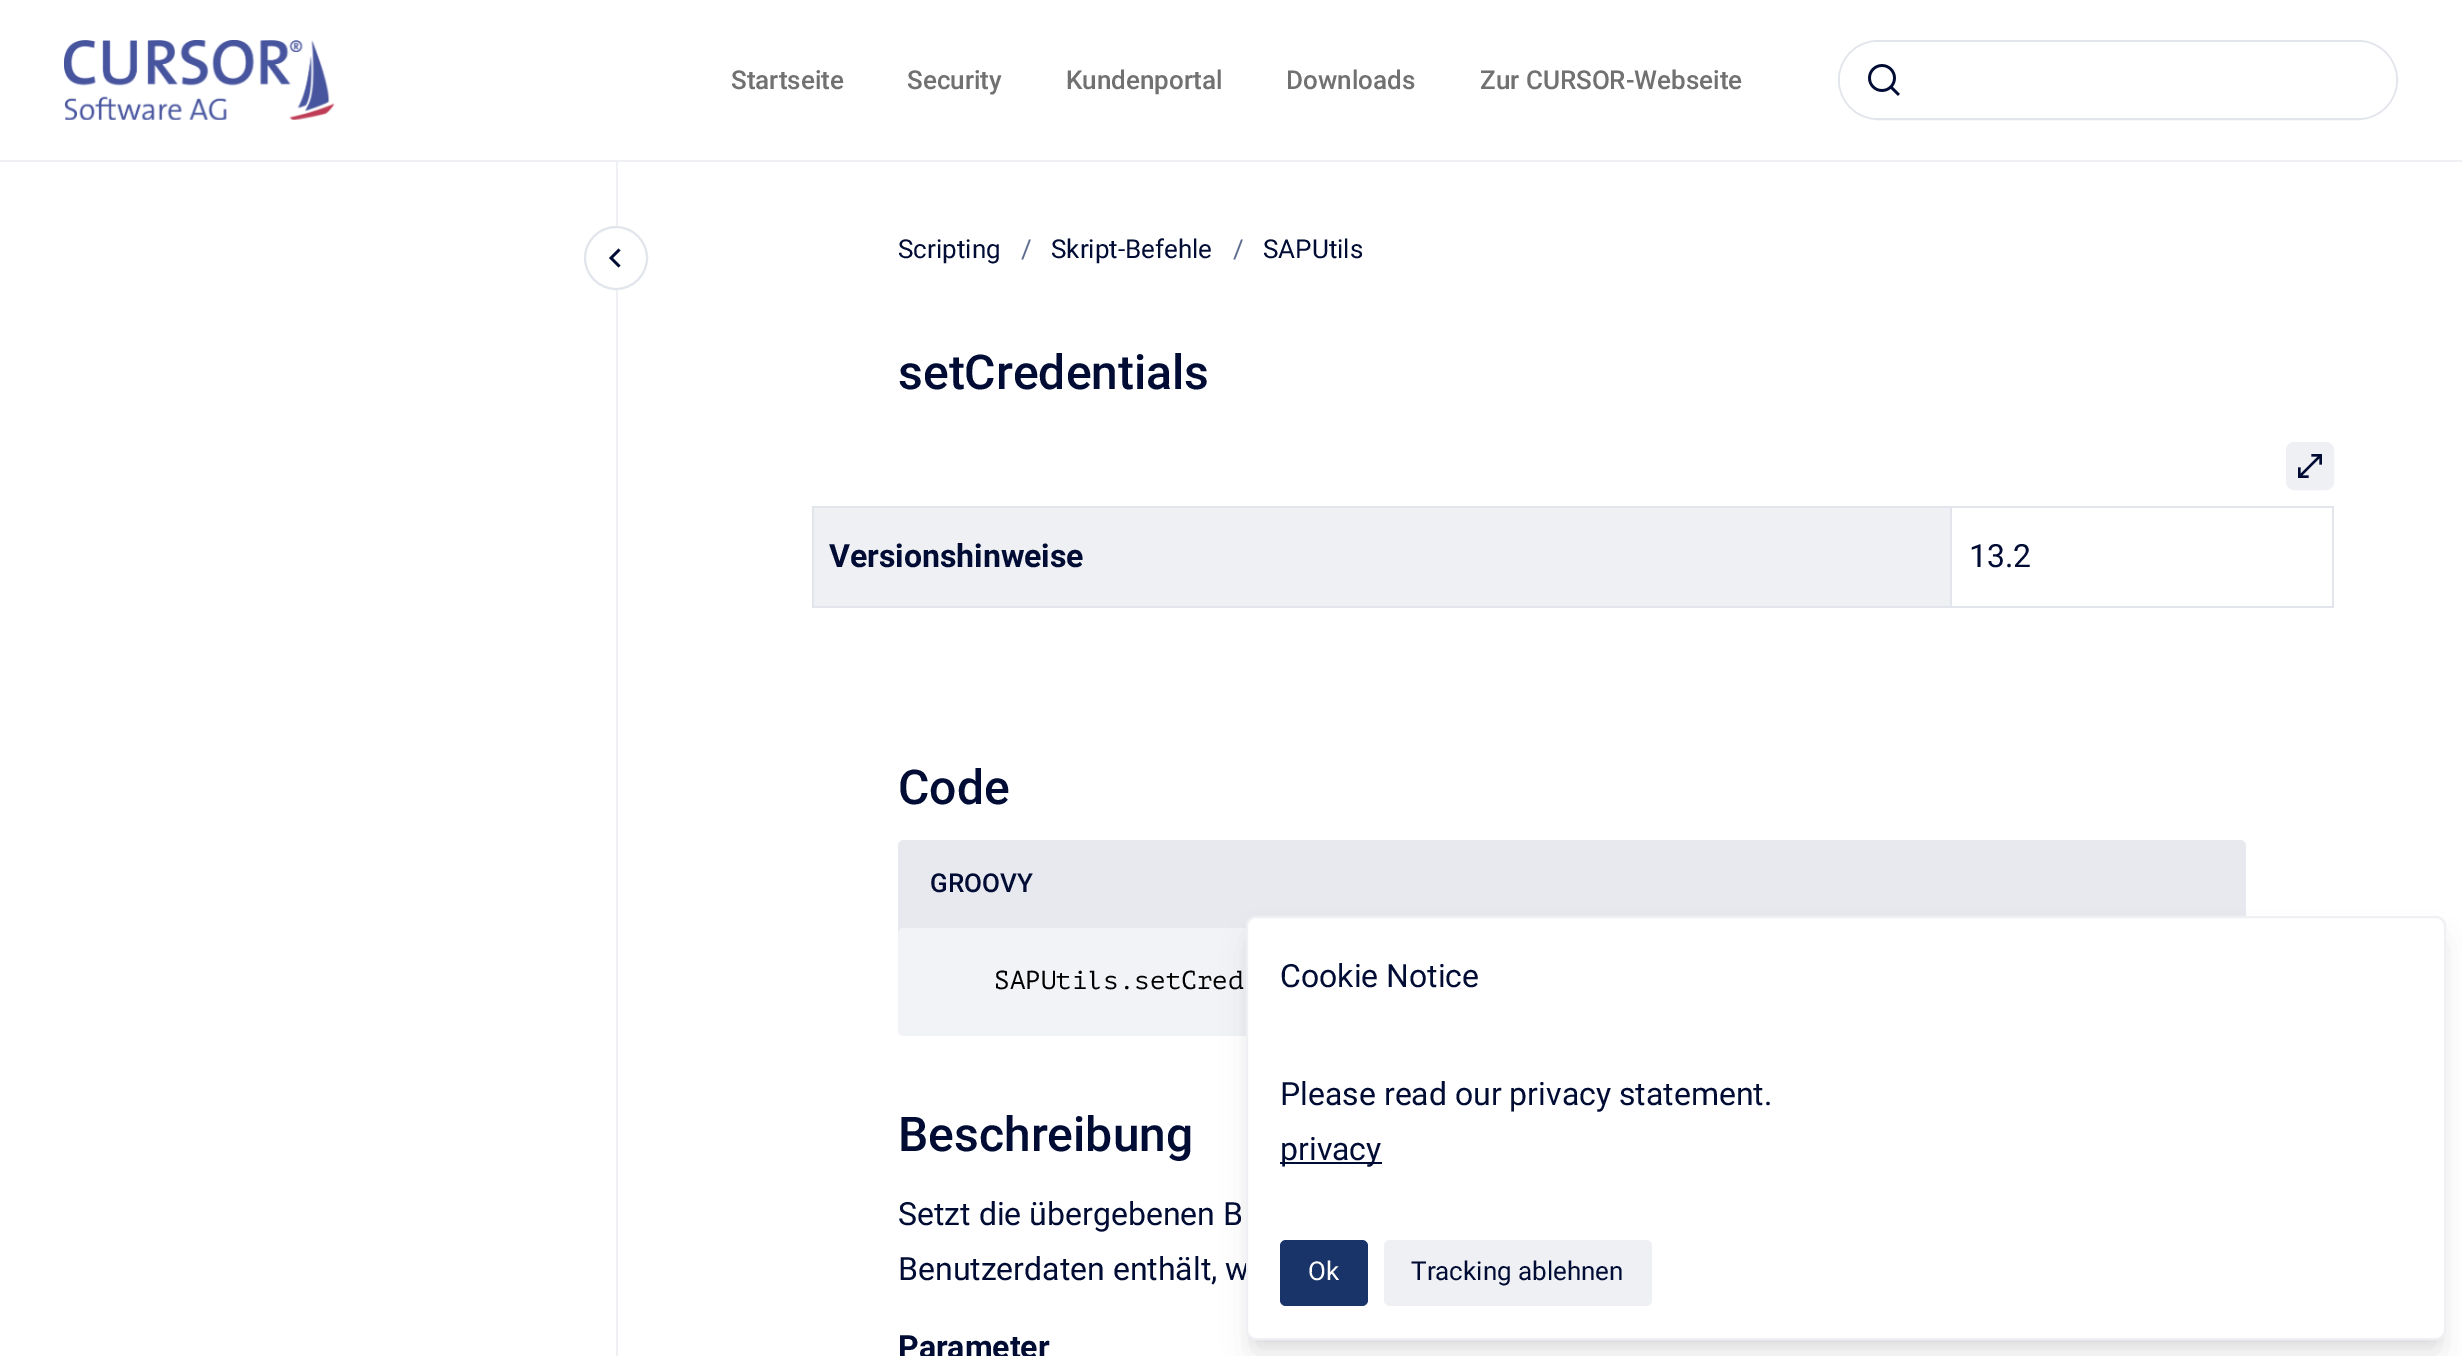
%!PS
<< /PageSize [2462 1356] /PageUsesTransparency true >> setpagedevice
/rgb { 3 { 255 div 3 1 roll } repeat setrgbcolor } def
/font { [ exch dup neg 0 0 3 -1 roll 0 0 ] selectfont } def
/text { moveto show } def
/alpha { dup .setfillconstantalpha .setstrokeconstantalpha } def
/roundrect { 5 dict begin { /r /h /w /y /x } { exch def } forall
  x r add y moveto x w add y 2 copy h add r arct x w add y h add x 1 index r arct
  x y h add x y r arct x y 2 copy exch w add exch r arct closepath end } def
/shadow { 12 dict begin { /a /b /q /h /w /y /x } { exch def } forall gsave /was 0 def
  9 -2 -9 { dup b mul 4 div /e exch def 1 sub .425 mul 2.718 exch exp 1 add a .99 .min exch div /now exch def
    1 1 now sub 1 was sub div sub alpha /was now def
    w h .min e 2 mul add 0 gt { x e sub y e sub w e 2 mul add h e 2 mul add
      q e add b .6 mul add w h .min 2 div e add .min 0 .max roundrect fill } if } for grestore end } def
/picture { 5 dict begin { /h /w /y /x /name } { exch def } forall
  gsave x y translate w h scale
  w h 8 [w 0 0 h 0 0] name (r) file false 3 colorimage grestore end } def
0 .pushpdf14devicefilter
0 1356 translate 1 -1 scale
4 setmiterlimit
255 255 255 rgb
0 0 2462 1356 rectfill
239 240 244 rgb
0 160 2462 2 rectfill
(img_01.rgb) 64 40 271 80 picture
226 229 235 rgb
2 setlinewidth
1839 41 558 78 39 roundrect stroke
255 255 255 rgb
1840 42 556 76 38 roundrect fill
(img_02.rgb) 1868 64 32 32 picture
239 240 244 rgb
616 162 2 1194 rectfill
255 255 255 rgb
616 290 moveto -18 0 -32 -14 -32 -32 rcurveto 0 -18 14 -32 32 -32 rcurveto 18 0 32 14 32 32 rcurveto 0 18 -14 32 -32 32 rcurveto closepath fill
226 229 235 rgb
616 289 moveto -17 0 -31 -14 -31 -31 rcurveto 0 -17 14 -31 31 -31 rcurveto 17 0 31 14 31 31 rcurveto 0 17 -14 31 -31 31 rcurveto closepath stroke
0 12 52 rgb
2.5 setlinewidth
2 setlinecap
618.5 265.5 moveto -7.5 -7.5 rlineto 7.5 -7.5 rlineto stroke
239 240 244 rgb
2287 443 46 46 7 roundrect gsave fill grestore
2 setlinewidth
0 setlinecap
stroke
(img_03.rgb) 2298 454 24 24 picture
226 229 235 rgb
812 506 1522 2 rectfill
2332 506 2 102 rectfill
812 606 1522 2 rectfill
812 506 2 102 rectfill
239 240 244 rgb
814 508 1136 98 rectfill
226 229 235 rgb
1950 506 2 102 rectfill
232 233 238 rgb
898 840 1348 196 6 roundrect fill
242 243 247 rgb
898 928 1348 108 6 roundrect fill
0 0 0 rgb
1250 928 1192 416 6 6 0.05 shadow
1252 942 1188 412 4 15 0.1 shadow
/Roboto-Medium 26 font
114 113 113 rgb
(Startseite) 731 89 text
(Security) 907 89 text
(Kundenportal) 1066 89 text
(Downloads) 1286 89 text
(Zur CURSOR-Webseite) 1480 89 text
/Roboto-Regular 26 font
0 12 52 rgb
(Scripting) 898 258 text
93 107 143 rgb
(/) 1021 258 text
0 12 52 rgb
(Skript-Befehle) 1051 258 text
93 107 143 rgb
(/) 1233 258 text
0 12 52 rgb
(SAPUtils) 1263 258 text
/Roboto-Medium 48 font
(setCredentials) 898 389 text
/Roboto-Bold 32 font
(Versionshinweise) 829 567 text
/Roboto-Regular 32 font
(13.2) 1969 567 text
/Roboto-Medium 48 font
(Code) 898 804 text
/Roboto-Medium 26 font
(GROOVY) 930 892 text
/PTMono-Regular 26 font
0 0 0 rgb
(SAPUtils.setCred) 994 989 text
/Roboto-Medium 48 font
0 12 52 rgb
(Beschreibung) 898 1151 text
/Roboto-Regular 32 font
(Setzt die übergebenen B) 898 1225 text
(Benutzerdaten enthält, w) 898 1280 text
/Roboto-Bold 32 font
(Parameter) 898 1358 text
255 255 255 rgb
1247 917 1198 422 9 roundrect gsave fill grestore
239 240 244 rgb
stroke
/Roboto-Regular 32 font
0 12 52 rgb
(Cookie Notice) 1280 987 text
(Please read our privacy statement.) 1280 1105 text
1280 1162 102 2 rectfill
(privacy) 1280 1160 text
25 52 104 rgb
1280 1240 88 66 6 roundrect fill
/Roboto-Regular 26 font
255 255 255 rgb
(Ok) 1308 1280 text
239 240 244 rgb
1384 1240 268 66 6 roundrect fill
0 12 52 rgb
(Tracking ablehnen) 1411 1280 text
.poppdf14devicefilter showpage
